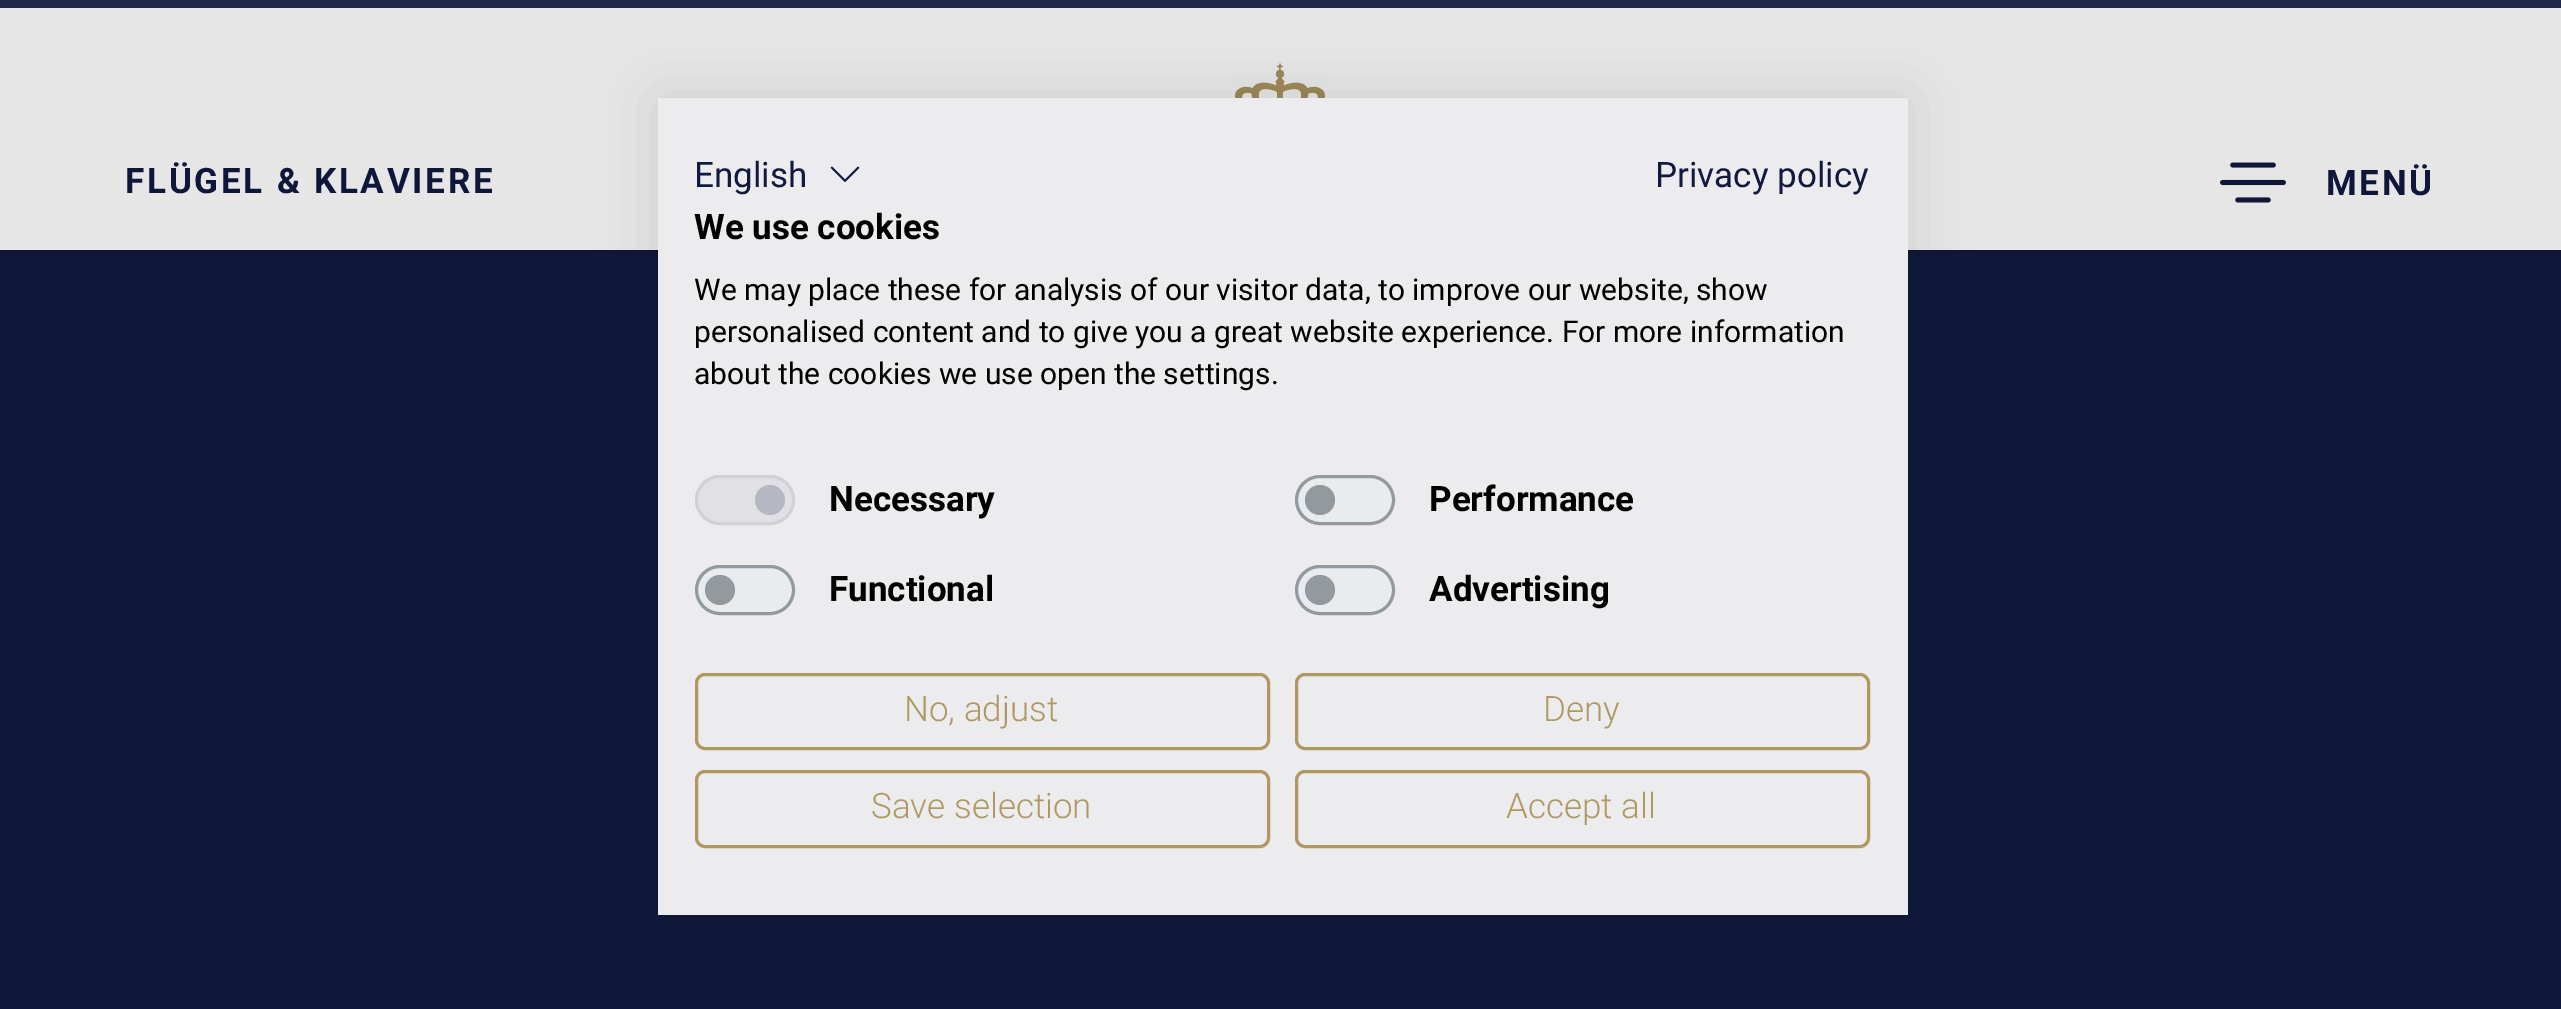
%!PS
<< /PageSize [2561 1009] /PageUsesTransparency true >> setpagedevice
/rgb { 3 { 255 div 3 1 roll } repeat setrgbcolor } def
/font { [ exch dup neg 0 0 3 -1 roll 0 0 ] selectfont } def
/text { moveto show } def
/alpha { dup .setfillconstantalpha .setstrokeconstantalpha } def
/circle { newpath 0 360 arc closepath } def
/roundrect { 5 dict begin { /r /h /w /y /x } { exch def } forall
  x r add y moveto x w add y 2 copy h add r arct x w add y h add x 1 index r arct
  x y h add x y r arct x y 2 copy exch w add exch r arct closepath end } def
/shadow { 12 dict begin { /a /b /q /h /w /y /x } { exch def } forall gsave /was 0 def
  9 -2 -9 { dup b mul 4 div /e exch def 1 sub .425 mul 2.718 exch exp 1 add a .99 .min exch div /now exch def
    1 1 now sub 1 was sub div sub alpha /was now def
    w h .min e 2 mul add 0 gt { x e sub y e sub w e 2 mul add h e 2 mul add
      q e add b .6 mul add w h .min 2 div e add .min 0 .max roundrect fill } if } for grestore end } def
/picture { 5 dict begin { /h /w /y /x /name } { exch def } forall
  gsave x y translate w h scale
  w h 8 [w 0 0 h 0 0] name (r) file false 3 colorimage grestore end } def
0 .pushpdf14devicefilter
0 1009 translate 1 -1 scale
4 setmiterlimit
15 23 59 rgb
0 0 2561 1009 rectfill
0 0 0 rgb
0 0 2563 250 0 7.5 0.2 shadow
230 230 230 rgb
0 8 2561 242 rectfill
32 40 72 rgb
0 0 2561 8 rectfill
(img_02.rgb) 1235 63 90 35 picture
0 0 0 rgb
658 98 1250 817 0 30 0.1 shadow
236 236 238 rgb
658 98 1250 817 rectfill
(img_01.rgb) 830 166 30 16 picture
225 225 229 rgb
695 475 100 50 25 roundrect fill
181 183 195 rgb
770 500 15 circle fill
209 210 216 rgb
3 setlinewidth
696.5 476.5 97 47 23.5 roundrect stroke
233 236 239 rgb
1295 475 100 50 25 roundrect fill
146 153 159 rgb
1320 500 15 circle fill
1296.5 476.5 97 47 23.5 roundrect stroke
233 236 239 rgb
695 565 100 50 25 roundrect fill
146 153 159 rgb
720 590 15 circle fill
696.5 566.5 97 47 23.5 roundrect stroke
233 236 239 rgb
1295 565 100 50 25 roundrect fill
146 153 159 rgb
1320 590 15 circle fill
1296.5 566.5 97 47 23.5 roundrect stroke
175 153 97 rgb
696.5 674.5 572 74 8.5 roundrect stroke
1296.5 674.5 572 74 8.5 roundrect stroke
696.5 771.5 572 75 8.5 roundrect stroke
1296.5 771.5 572 75 8.5 roundrect stroke
(img_03.rgb) 2220 162 66 41 picture
/Roboto-Regular 35 font
17 25 65 rgb
(English) 694 187 text
(Privacy policy) 1655 187 text
/Roboto-Bold 35 font
0 0 0 rgb
(We use cookies) 694 239 text
/Roboto-Regular 30 font
(We may place these for analysis of our visitor data, to improve our website, show) 694 300 text
(personalised content and to give you a great website experience. For more information) 694 342 text
(about the cookies we use open the settings.) 694 384 text
/Roboto-Bold 35 font
(Necessary) 829 511 text
(Performance) 1429 511 text
(Functional) 829 601 text
(Advertising) 1429 601 text
/Roboto-Light 35 font
175 153 97 rgb
(No, adjust) 904 721 text
(Deny) 1543 721 text
(Save selection) 871 818 text
(Accept all) 1506 818 text
/Roboto-Bold 35 font
14 23 58 rgb
125 193 moveto 2.75 0 (FLÜGEL & KLAVIERE) ashow
2326 195 moveto 2.75 0 (MENÜ) ashow
.poppdf14devicefilter showpage
